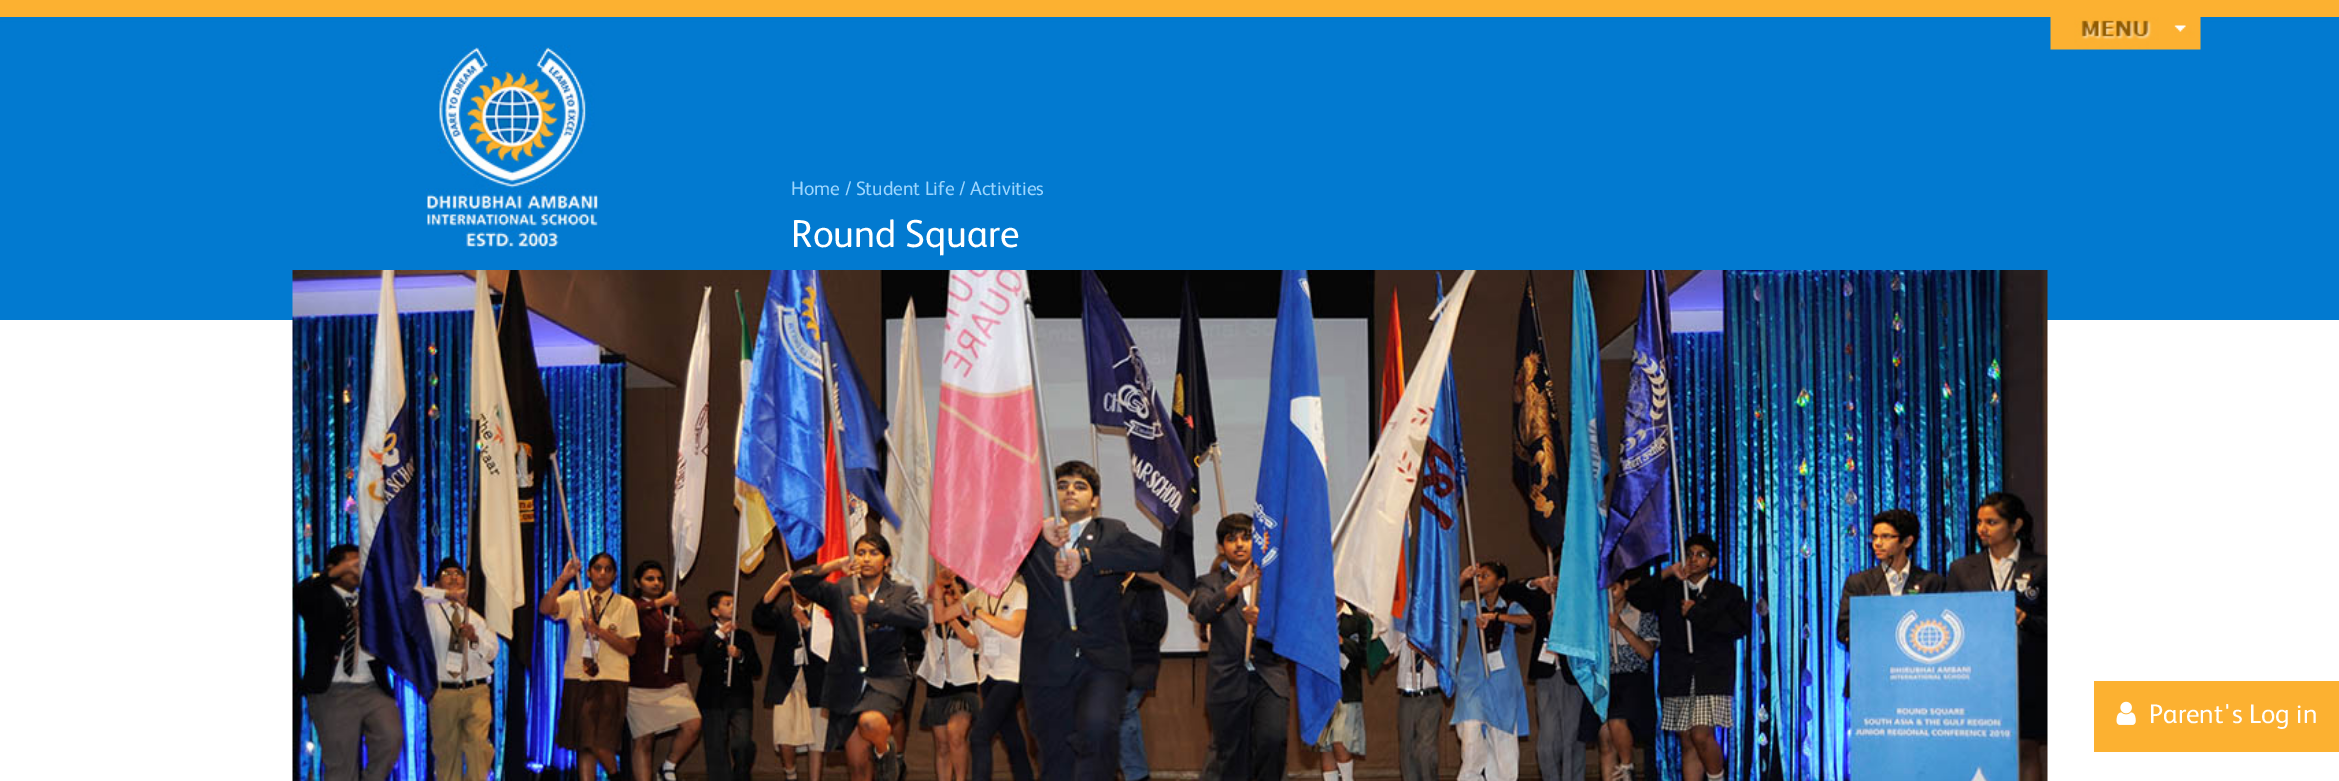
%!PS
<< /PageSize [2339 781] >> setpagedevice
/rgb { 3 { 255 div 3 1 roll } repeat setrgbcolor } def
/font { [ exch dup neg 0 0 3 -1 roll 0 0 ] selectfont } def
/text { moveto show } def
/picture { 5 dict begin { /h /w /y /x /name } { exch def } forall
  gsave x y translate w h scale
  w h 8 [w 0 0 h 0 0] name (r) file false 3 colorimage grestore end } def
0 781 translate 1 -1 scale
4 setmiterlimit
255 255 255 rgb
0 0 2339 781 rectfill
(img_01.rgb) 0 17 2339 16 picture
252 177 49 rgb
0 0 2339 17 rectfill
2 122 208 rgb
0 33 2339 287 rectfill
(img_02.rgb) 2050 17 151 33 picture
(img_03.rgb) 426 45 173 204 picture
(img_04.rgb) 292 270 1756 511 picture
252 177 49 rgb
2094 681 245 71 rectfill
(img_05.rgb) 2116 701 20 24 picture
/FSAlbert-Regular 19.5 font
156 214 255 rgb
(Home / Student Life / Activities) 791 195 text
/FSAlbert-Regular 39 font
255 255 255 rgb
(Round Square) 791 247 text
/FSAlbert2-Regular 27 font
(Parent's Log in) 2149 723 text
showpage
